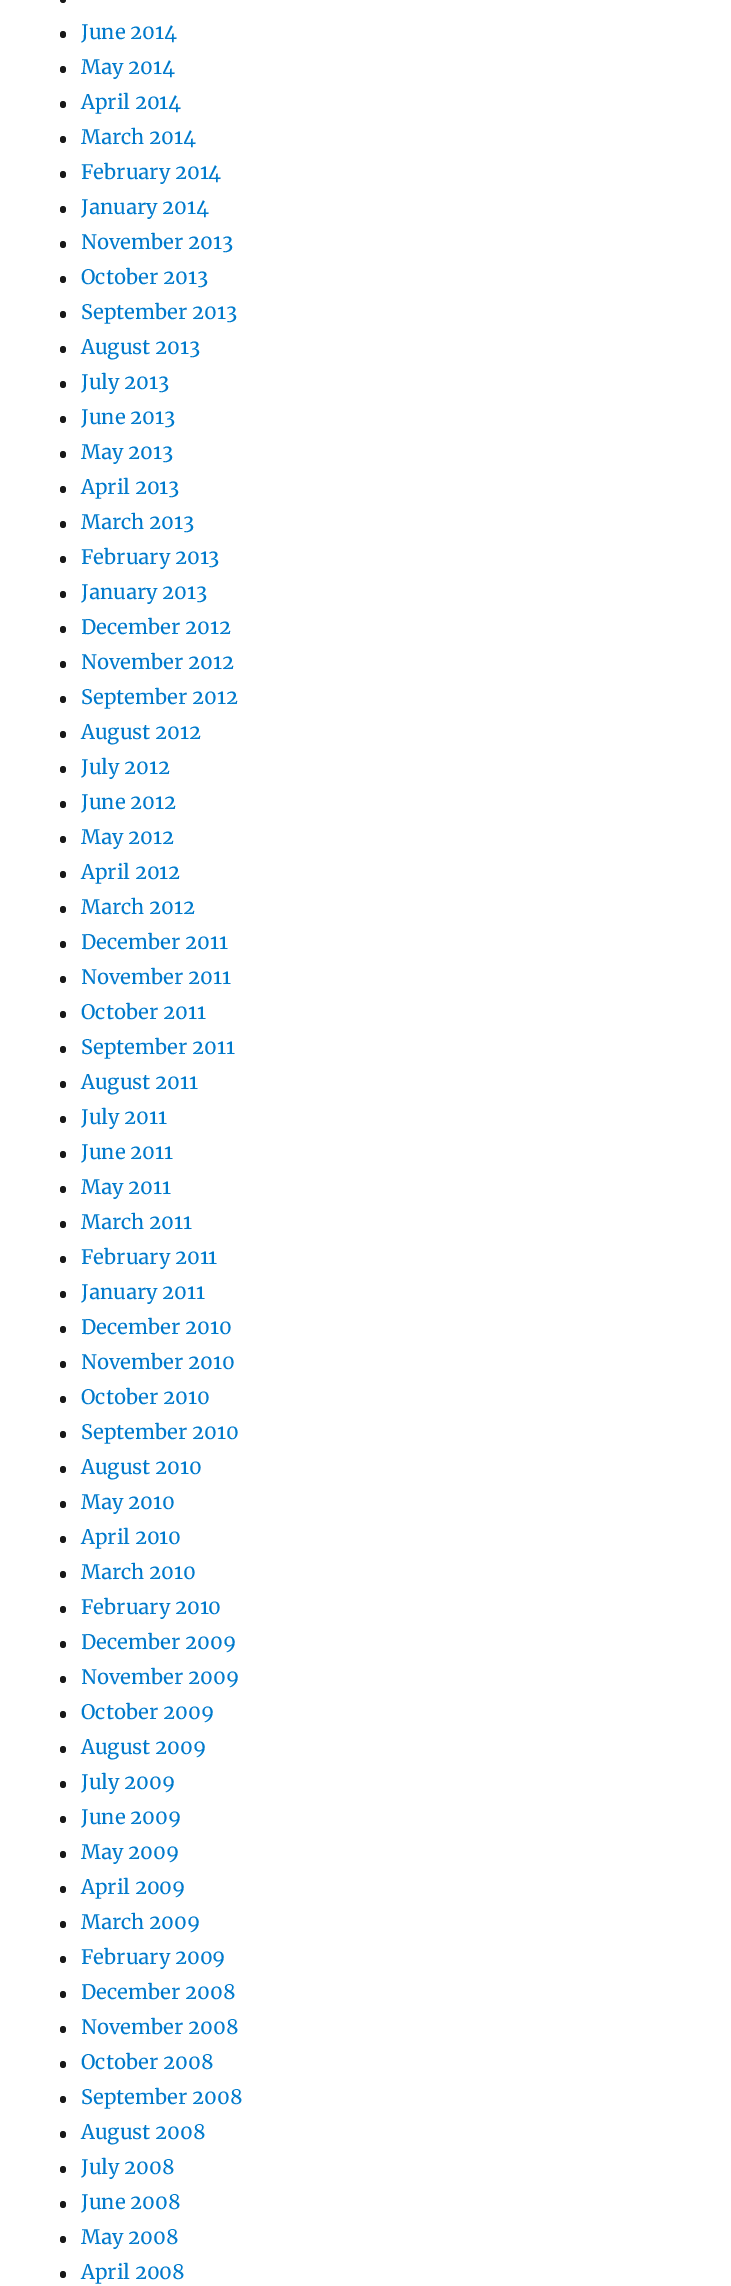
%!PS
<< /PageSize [731 2286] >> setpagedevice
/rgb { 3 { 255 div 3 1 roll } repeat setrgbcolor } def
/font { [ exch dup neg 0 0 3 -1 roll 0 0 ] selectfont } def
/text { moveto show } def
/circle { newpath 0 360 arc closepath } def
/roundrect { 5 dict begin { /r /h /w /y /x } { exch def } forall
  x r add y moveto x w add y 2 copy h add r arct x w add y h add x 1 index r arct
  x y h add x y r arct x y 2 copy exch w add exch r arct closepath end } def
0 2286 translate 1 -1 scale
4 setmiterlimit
255 255 255 rgb
0 0 731 2286 rectfill
26 26 26 rgb
63 0 3 circle fill
60 31 6 7 3 roundrect fill
60 66 6 7 3 roundrect fill
60 101 6 7 3 roundrect fill
60 136 6 7 3 roundrect fill
60 171 6 7 3 roundrect fill
60 206 6 7 3 roundrect fill
60 241 6 7 3 roundrect fill
60 276 6 7 3 roundrect fill
60 311 6 7 3 roundrect fill
60 346 6 7 3 roundrect fill
60 381 6 7 3 roundrect fill
60 416 6 7 3 roundrect fill
60 451 6 7 3 roundrect fill
60 486 6 7 3 roundrect fill
60 521 6 7 3 roundrect fill
60 556 6 7 3 roundrect fill
60 591 6 7 3 roundrect fill
60 626 6 7 3 roundrect fill
60 661 6 7 3 roundrect fill
60 696 6 7 3 roundrect fill
60 731 6 7 3 roundrect fill
60 766 6 7 3 roundrect fill
60 801 6 7 3 roundrect fill
60 836 6 7 3 roundrect fill
60 871 6 7 3 roundrect fill
60 906 6 7 3 roundrect fill
60 941 6 7 3 roundrect fill
60 976 6 7 3 roundrect fill
60 1011 6 7 3 roundrect fill
60 1046 6 7 3 roundrect fill
60 1081 6 7 3 roundrect fill
60 1116 6 7 3 roundrect fill
60 1151 6 7 3 roundrect fill
60 1186 6 7 3 roundrect fill
60 1221 6 7 3 roundrect fill
60 1256 6 7 3 roundrect fill
60 1291 6 7 3 roundrect fill
60 1326 6 7 3 roundrect fill
60 1361 6 7 3 roundrect fill
60 1396 6 7 3 roundrect fill
60 1431 6 7 3 roundrect fill
60 1466 6 7 3 roundrect fill
60 1501 6 7 3 roundrect fill
60 1536 6 7 3 roundrect fill
60 1571 6 7 3 roundrect fill
60 1606 6 7 3 roundrect fill
60 1641 6 7 3 roundrect fill
60 1676 6 7 3 roundrect fill
60 1711 6 7 3 roundrect fill
60 1746 6 7 3 roundrect fill
60 1781 6 7 3 roundrect fill
60 1816 6 7 3 roundrect fill
60 1851 6 7 3 roundrect fill
60 1886 6 7 3 roundrect fill
60 1921 6 7 3 roundrect fill
60 1956 6 7 3 roundrect fill
60 1991 6 7 3 roundrect fill
60 2026 6 7 3 roundrect fill
60 2061 6 7 3 roundrect fill
60 2096 6 7 3 roundrect fill
60 2131 6 7 3 roundrect fill
60 2166 6 7 3 roundrect fill
60 2201 6 7 3 roundrect fill
60 2236 6 7 3 roundrect fill
60 2271 6 7 3 roundrect fill
/Merriweather-Regular 20 font
0 122 204 rgb
(June 2014) 81 39 text
(May 2014) 81 74 text
(April 2014) 81 109 text
(March 2014) 81 144 text
(February 2014) 81 179 text
(January 2014) 81 214 text
(November 2013) 81 249 text
(October 2013) 81 284 text
(September 2013) 81 319 text
(August 2013) 81 354 text
(July 2013) 81 389 text
(June 2013) 81 424 text
(May 2013) 81 459 text
(April 2013) 81 494 text
(March 2013) 81 529 text
(February 2013) 81 564 text
(January 2013) 81 599 text
(December 2012) 81 634 text
(November 2012) 81 669 text
(September 2012) 81 704 text
(August 2012) 81 739 text
(July 2012) 81 774 text
(June 2012) 81 809 text
(May 2012) 81 844 text
(April 2012) 81 879 text
(March 2012) 81 914 text
(December 2011) 81 949 text
(November 2011) 81 984 text
(October 2011) 81 1019 text
(September 2011) 81 1054 text
(August 2011) 81 1089 text
(July 2011) 81 1124 text
(June 2011) 81 1159 text
(May 2011) 81 1194 text
(March 2011) 81 1229 text
(February 2011) 81 1264 text
(January 2011) 81 1299 text
(December 2010) 81 1334 text
(November 2010) 81 1369 text
(October 2010) 81 1404 text
(September 2010) 81 1439 text
(August 2010) 81 1474 text
(May 2010) 81 1509 text
(April 2010) 81 1544 text
(March 2010) 81 1579 text
(February 2010) 81 1614 text
(December 2009) 81 1649 text
(November 2009) 81 1684 text
(October 2009) 81 1719 text
(August 2009) 81 1754 text
(July 2009) 81 1789 text
(June 2009) 81 1824 text
(May 2009) 81 1859 text
(April 2009) 81 1894 text
(March 2009) 81 1929 text
(February 2009) 81 1964 text
(December 2008) 81 1999 text
(November 2008) 81 2034 text
(October 2008) 81 2069 text
(September 2008) 81 2104 text
(August 2008) 81 2139 text
(July 2008) 81 2174 text
(June 2008) 81 2209 text
(May 2008) 81 2244 text
(April 2008) 81 2279 text
showpage
